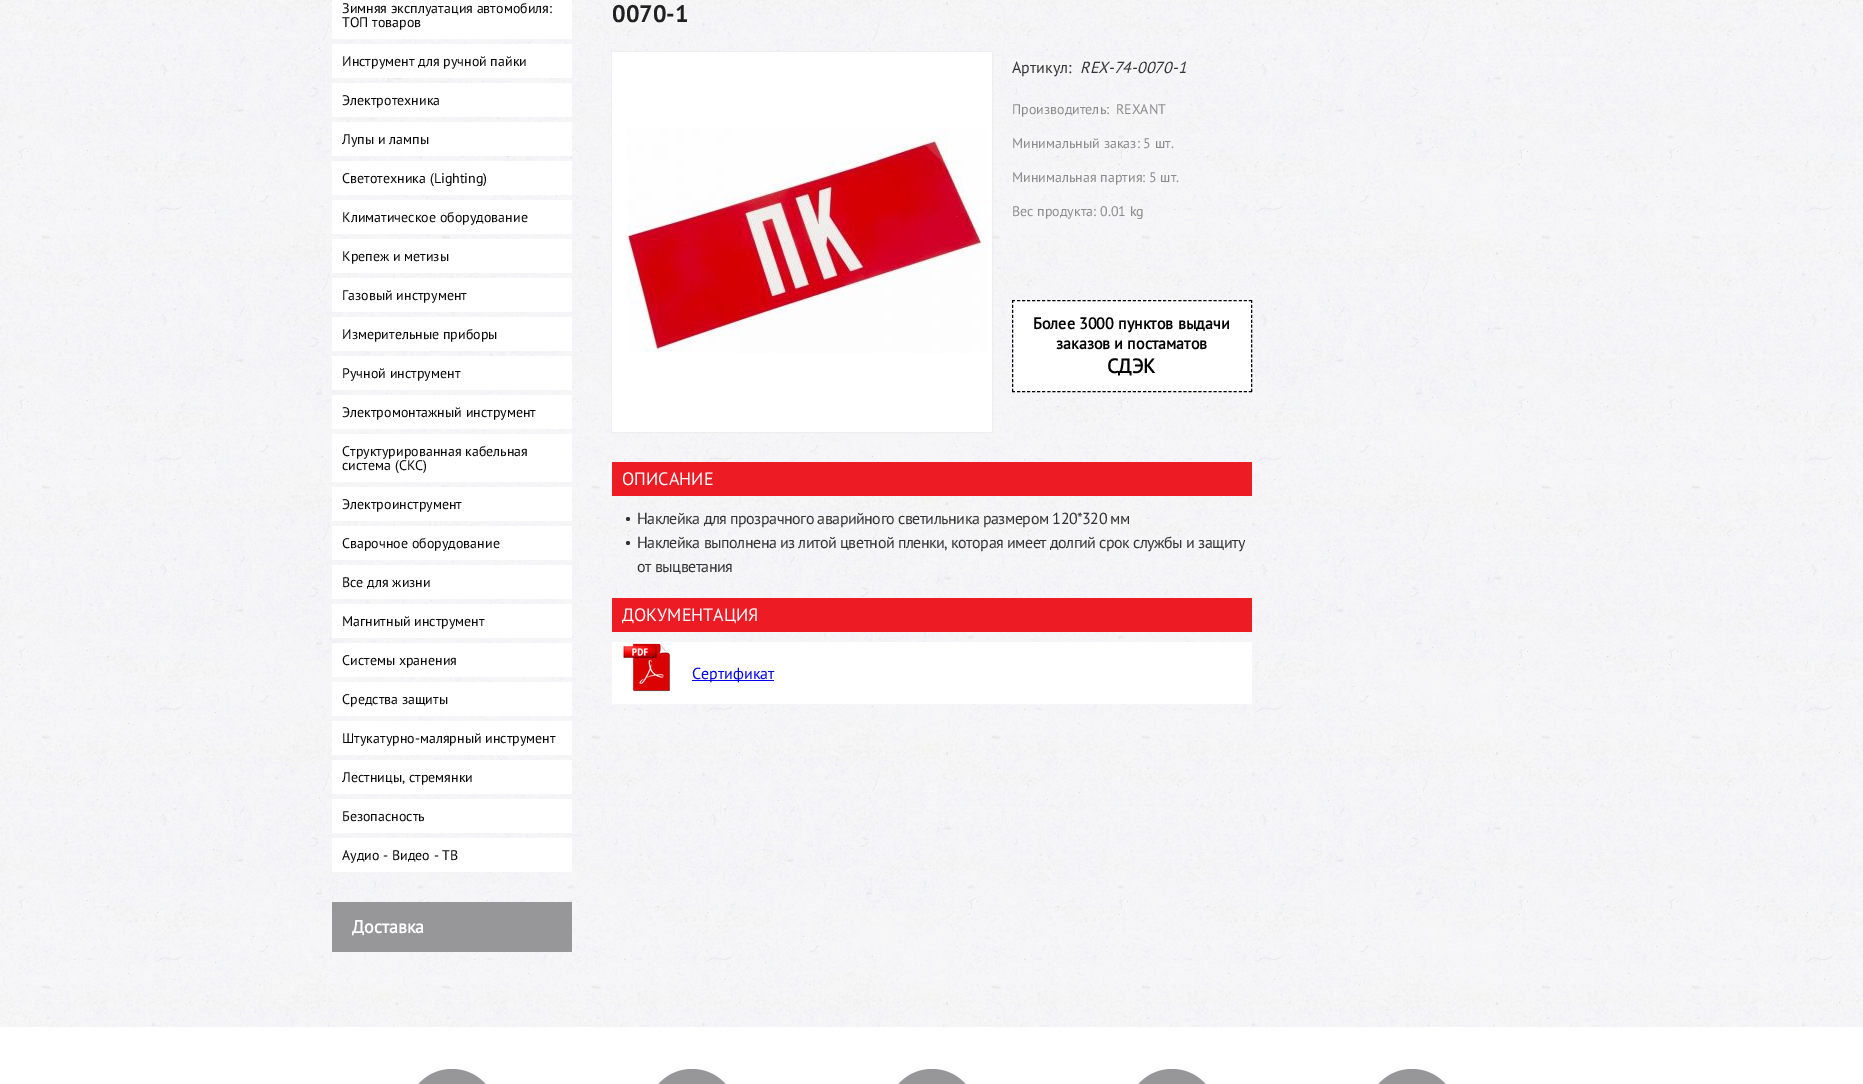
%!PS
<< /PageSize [1863 1084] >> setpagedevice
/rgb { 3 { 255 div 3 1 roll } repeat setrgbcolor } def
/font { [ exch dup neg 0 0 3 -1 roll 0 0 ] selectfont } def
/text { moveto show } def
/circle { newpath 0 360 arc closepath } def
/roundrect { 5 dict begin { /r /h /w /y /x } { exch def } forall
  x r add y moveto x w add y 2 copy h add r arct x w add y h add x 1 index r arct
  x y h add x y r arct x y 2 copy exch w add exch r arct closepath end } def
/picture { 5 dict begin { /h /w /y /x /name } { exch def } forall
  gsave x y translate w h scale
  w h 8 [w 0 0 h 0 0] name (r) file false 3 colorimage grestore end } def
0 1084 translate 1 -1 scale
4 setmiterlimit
255 255 255 rgb
0 0 1863 1084 rectfill
(img_01.rgb) 0 0 1863 1027 picture
332 0 240 39 rectfill
332 44 240 34 rectfill
332 83 240 34 rectfill
332 122 240 34 rectfill
332 161 240 34 rectfill
332 200 240 34 rectfill
332 239 240 34 rectfill
332 278 240 34 rectfill
332 317 240 34 rectfill
332 356 240 34 rectfill
332 395 240 34 rectfill
332 434 240 48 rectfill
332 487 240 34 rectfill
332 526 240 34 rectfill
332 565 240 34 rectfill
332 604 240 34 rectfill
332 643 240 34 rectfill
332 682 240 34 rectfill
332 721 240 34 rectfill
332 760 240 34 rectfill
332 799 240 34 rectfill
332 838 240 34 rectfill
151 151 153 rgb
332 902 240 50 rectfill
238 238 238 rgb
611.5 51.5 381 381 rectstroke
255 255 255 rgb
612 52 380 380 rectfill
(img_02.rgb) 627 128 361 225 picture
1012 300 240 92 rectfill
1 1 1 rgb
[3 2.04] 0 setdash
1012 300.5 moveto 240 0 rlineto stroke
[3 1.94] 0 setdash
1251.5 300 moveto 0 92 rlineto stroke
[3 2.04] 0 setdash
1012 391.5 moveto 240 0 rlineto stroke
[3 1.94] 0 setdash
1012.5 300 moveto 0 92 rlineto stroke
237 28 36 rgb
612 462 640 34 rectfill
51 51 51 rgb
628 519 2 circle fill
628 543 2 circle fill
237 28 36 rgb
612 598 640 34 rectfill
255 255 255 rgb
612 642 640 62 rectfill
(img_03.rgb) 623 643 48 49 picture
0 0 238 rgb
692 680 82 1 rectfill
151 151 153 rgb
407 1069 90 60 45 roundrect fill
647 1069 90 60 45 roundrect fill
887 1069 90 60 45 roundrect fill
1127 1069 90 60 45 roundrect fill
1367 1069 90 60 45 roundrect fill
/PTSans-Regular 14 font
7 7 7 rgb
(Зимняя эксплуатация автомобиля:) 342 13 text
(ТОП товаров) 342 27 text
(Инструмент для ручной пайки) 342 66 text
(Электротехника) 342 105 text
(Лупы и лампы) 342 144 text
(Светотехника \(Lighting\)) 342 183 text
(Климатическое оборудование) 342 222 text
(Крепеж и метизы) 342 261 text
(Газовый инструмент) 342 300 text
(Измерительные приборы) 342 339 text
(Ручной инструмент) 342 378 text
(Электромонтажный инструмент) 342 417 text
(Структурированная кабельная) 342 456 text
(система \(СКС\)) 342 470 text
(Электроинструмент) 342 509 text
(Сварочное оборудование) 342 548 text
(Все для жизни) 342 587 text
(Магнитный инструмент) 342 626 text
(Системы хранения) 342 665 text
(Средства защиты) 342 704 text
(Штукатурно-малярный инструмент) 342 743 text
(Лестницы, стремянки) 342 782 text
(Безопасность) 342 821 text
(Аудио - Видео - ТВ) 342 860 text
/PTSans-Bold 18 font
255 255 255 rgb
(Доставка) 352 933 text
/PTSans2-Bold 24 font
33 33 33 rgb
(0070-1) 612 22 text
/PTSans-Regular 16 font
51 51 51 rgb
(Артикул:) 1012 73 text
/PTSans-Italic 16 font
(REX-74-0070-1) 1080 73 text
/PTSans-Regular 14 font
139 139 139 rgb
(Производитель:) 1012 114 text
(REXANT) 1116 114 text
(Минимальный заказ: 5 шт.) 1012 148 text
(Минимальная партия: 5 шт.) 1012 182 text
(Вес продукта: 0.01 kg) 1012 216 text
/PTSans-Bold 16 font
0 0 0 rgb
(Более 3000 пунктов выдачи) 1033 329 text
(заказов и постаматов) 1056 349 text
/PTSans-Bold 20 font
(СДЭК) 1107 373 text
/PTSans-Regular 18 font
255 255 255 rgb
(ОПИСАНИЕ) 622 485 text
/PTSans-Regular 16 font
51 51 51 rgb
637 524 moveto -0.5 0 (Наклейка для прозрачного аварийного светильника размером 120*320 мм) ashow
637 548 moveto -0.5 0 (Наклейка выполнена из литой цветной пленки, которая имеет долгий срок службы и защиту) ashow
637 572 moveto -0.5 0 (от выцветания) ashow
/PTSans-Regular 18 font
255 255 255 rgb
(ДОКУМЕНТАЦИЯ) 622 621 text
/PTSans-Regular 16 font
0 0 238 rgb
(Сертификат) 692 679 text
showpage
